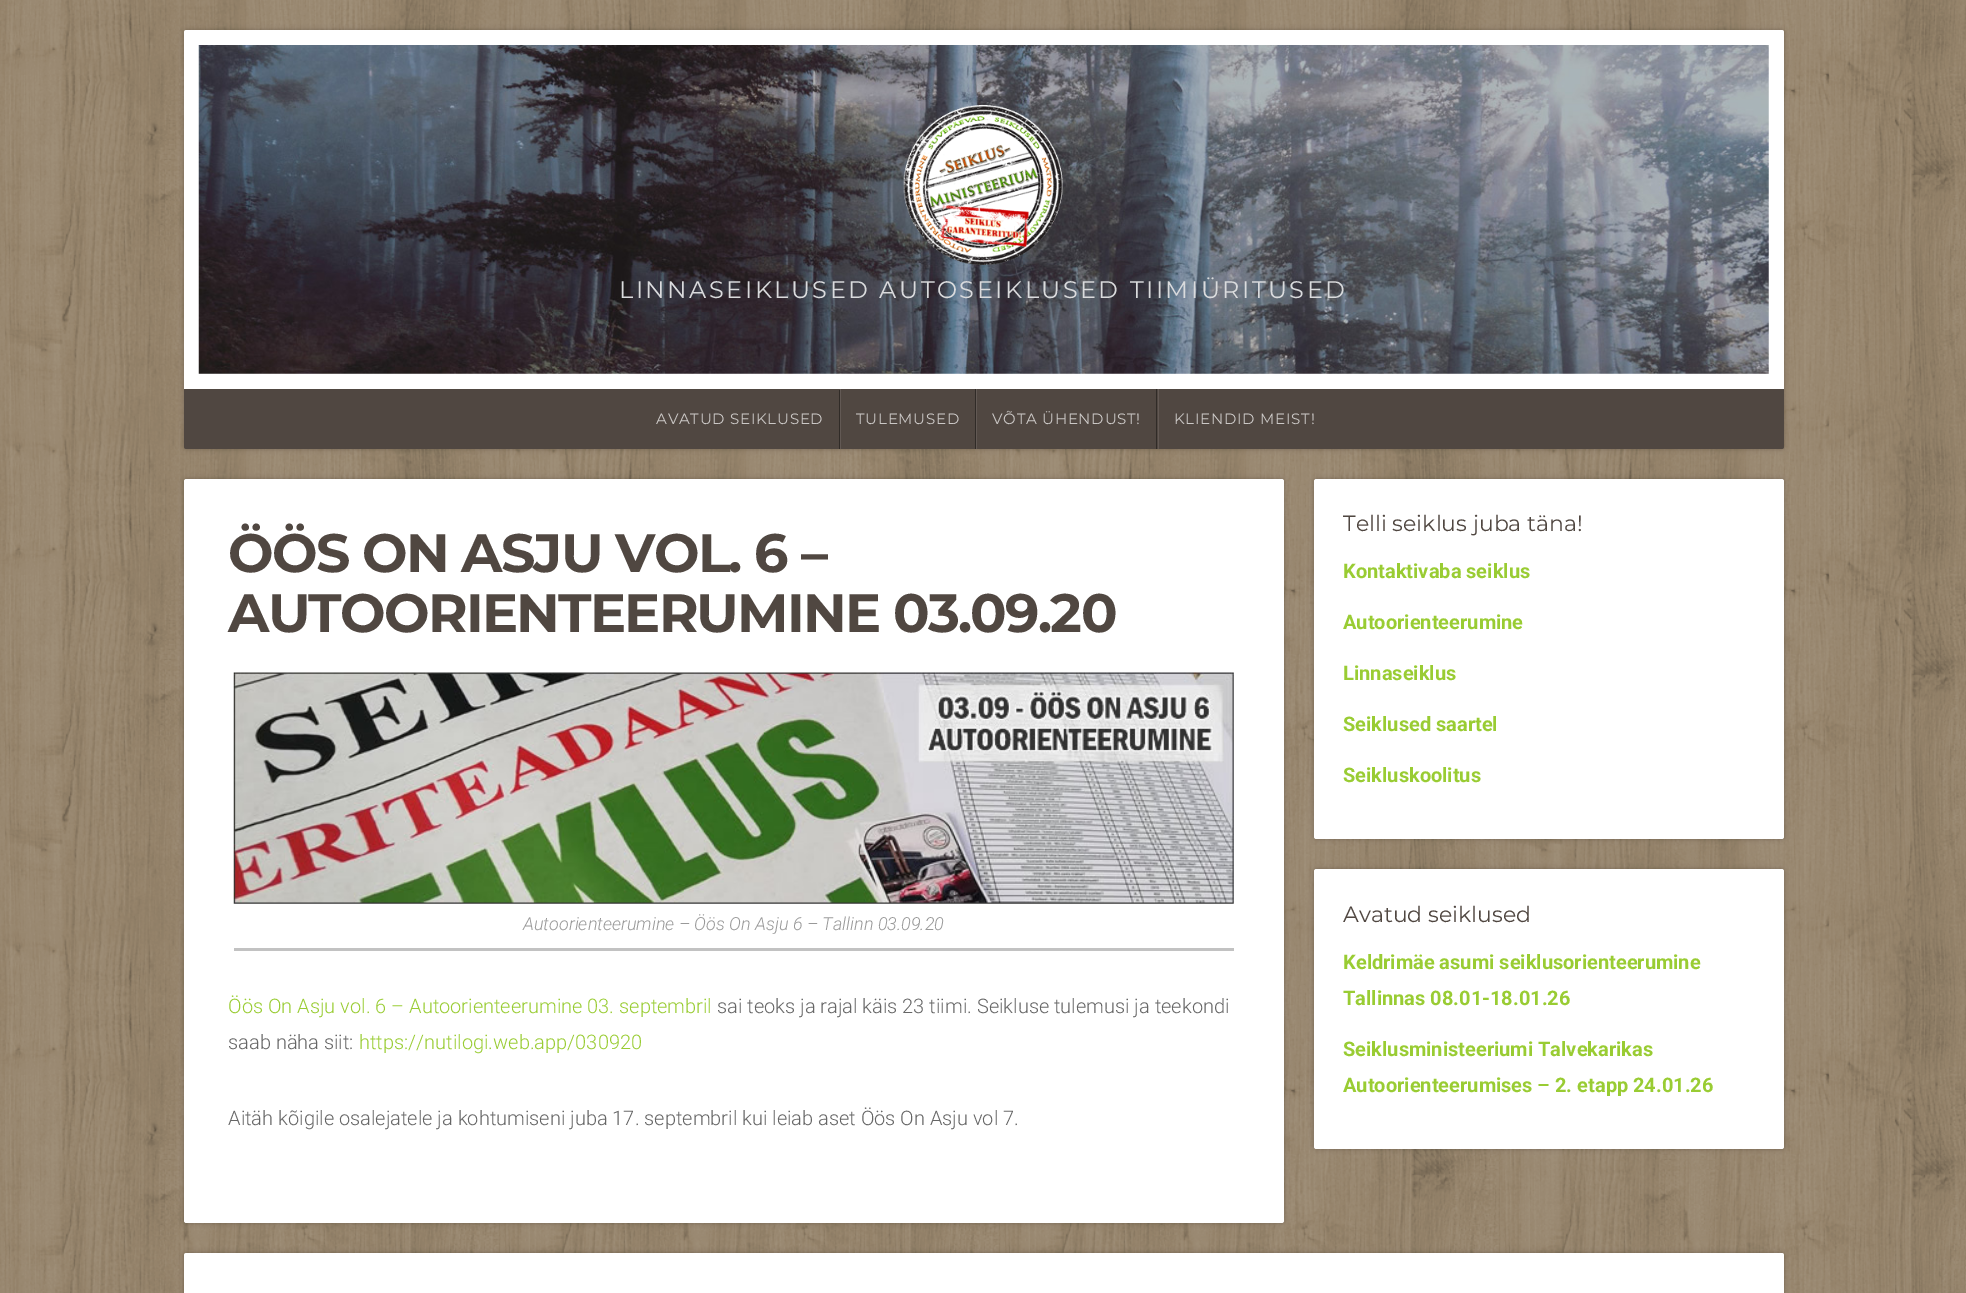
%!PS
<< /PageSize [1966 1293] /PageUsesTransparency true >> setpagedevice
/rgb { 3 { 255 div 3 1 roll } repeat setrgbcolor } def
/font { [ exch dup neg 0 0 3 -1 roll 0 0 ] selectfont } def
/text { moveto show } def
/alpha { dup .setfillconstantalpha .setstrokeconstantalpha } def
/roundrect { 5 dict begin { /r /h /w /y /x } { exch def } forall
  x r add y moveto x w add y 2 copy h add r arct x w add y h add x 1 index r arct
  x y h add x y r arct x y 2 copy exch w add exch r arct closepath end } def
/shadow { 12 dict begin { /a /b /q /h /w /y /x } { exch def } forall gsave /was 0 def
  9 -2 -9 { dup b mul 4 div /e exch def 1 sub .425 mul 2.718 exch exp 1 add a .99 .min exch div /now exch def
    1 1 now sub 1 was sub div sub alpha /was now def
    w h .min e 2 mul add 0 gt { x e sub y e sub w e 2 mul add h e 2 mul add
      q e add b .6 mul add w h .min 2 div e add .min 0 .max roundrect fill } if } for grestore end } def
/picture { 5 dict begin { /h /w /y /x /name } { exch def } forall
  gsave x y translate w h scale
  w h 8 [w 0 0 h 0 0] name (r) file false 3 colorimage grestore end } def
0 .pushpdf14devicefilter
0 1293 translate 1 -1 scale
4 setmiterlimit
255 255 255 rgb
0 0 1966 1293 rectfill
(img_01.rgb) 0 0 1966 1293 picture
0 0 0 rgb
184 30 1600 419 2.5 2.5 0.24 shadow
255 255 255 rgb
186.5 30 moveto 1595 0 rlineto 1.5 0 2.5 1 2.5 2.5 rcurveto 0 356.5 rlineto -1600 0 rlineto 0 -356.5 rlineto 0 -1.5 1 -2.5 2.5 -2.5 rcurveto closepath fill
(img_02.rgb) 198 45 1571 329 picture
(img_03.rgb) 903 105 160 160 picture
80 71 65 rgb
184 389 moveto 1600 0 rlineto 0 57.5 rlineto 0 1.5 -1 2.5 -2.5 2.5 rcurveto -1595 0 rlineto -1.5 0 -2.5 -1 -2.5 -2.5 rcurveto closepath fill
48 43 39 rgb
839 390 1 59 rectfill
975 389 1 60 rectfill
98 89 84 rgb
840 389 1 60 rectfill
48 43 39 rgb
1156 389 1 60 rectfill
98 89 84 rgb
976 389 1 60 rectfill
1158 389 1 60 rectfill
0 0 0 rgb
184 479 1100 744 2.5 2.5 0.24 shadow
255 255 255 rgb
184 479 1100 744 2.5 roundrect fill
(img_04.rgb) 233 672 1001 232 picture
194 194 194 rgb
234 948 1000 3 rectfill
0 0 0 rgb
1314 479 470 360 2.5 2.5 0.24 shadow
255 255 255 rgb
1314 479 470 360 2.5 roundrect fill
0 0 0 rgb
1314 869 470 280 2.5 2.5 0.24 shadow
255 255 255 rgb
1314 869 470 280 2.5 roundrect fill
0 0 0 rgb
184 1253 1600 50 2.5 2.5 0.24 shadow
255 255 255 rgb
186.5 1253 moveto 1595 0 rlineto 1.5 0 2.5 1 2.5 2.5 rcurveto 0 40.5 rlineto -1600 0 rlineto 0 -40.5 rlineto 0 -1.5 1 -2.5 2.5 -2.5 rcurveto closepath fill
/Montserrat-Regular 24 font
218 219 221 rgb
619 298 moveto 2.5 0 (LINNASEIKLUSED AUTOSEIKLUSED TIIMIÜRITUSED) ashow
/Montserrat-Regular 15 font
203 200 198 rgb
656 424 moveto 0.75 0 (AVATUD SEIKLUSED) ashow
856 424 moveto 0.75 0 (TULEMUSED) ashow
992 424 moveto 0.75 0 (VÕTA ÜHENDUST!) ashow
1174 424 moveto 0.75 0 (KLIENDID MEIST!) ashow
/Montserrat-Bold 54 font
80 71 65 rgb
228 572 moveto -1.75 0 (ÖÖS ON ASJU VOL. 6 –) ashow
228 632 moveto -1.75 0 (AUTOORIENTEERUMINE 03.09.20) ashow
/Roboto-LightItalic 18 font
153 153 153 rgb
(Autoorienteerumine – Öös On Asju 6 – Tallinn 03.09.20) 523 930 text
/Roboto-Light 20 font
153 204 51 rgb
(Öös On Asju vol. 6 – Autoorienteerumine 03. septembril) 228 1013 text
102 102 102 rgb
(sai teoks ja rajal käis 23 tiimi. Seikluse tulemusi ja teekondi) 717 1013 text
(saab näha siit:) 228 1049 text
153 204 51 rgb
(https://nutilogi.web.app/030920) 359 1049 text
102 102 102 rgb
(Aitäh kõigile osalejatele ja kohtumiseni juba 17. septembril kui leiab aset Öös On Asju vol 7.) 228 1125 text
/Montserrat-Regular 22 font
80 71 65 rgb
(Telli seiklus juba täna!) 1343 531 text
/Roboto-Bold 20 font
153 204 51 rgb
(Kontaktivaba seiklus) 1343 578 text
(Autoorienteerumine) 1343 629 text
(Linnaseiklus) 1343 680 text
(Seiklused saartel) 1343 731 text
(Seikluskoolitus) 1343 782 text
/Montserrat-Regular 22 font
80 71 65 rgb
(Avatud seiklused) 1343 922 text
/Roboto-Bold 20 font
153 204 51 rgb
(Keldrimäe asumi seiklusorienteerumine) 1343 969 text
(Tallinnas 08.01-18.01.26) 1343 1005 text
(Seiklusministeeriumi Talvekarikas) 1343 1056 text
(Autoorienteerumises – 2. etapp 24.01.26) 1343 1092 text
.poppdf14devicefilter showpage
